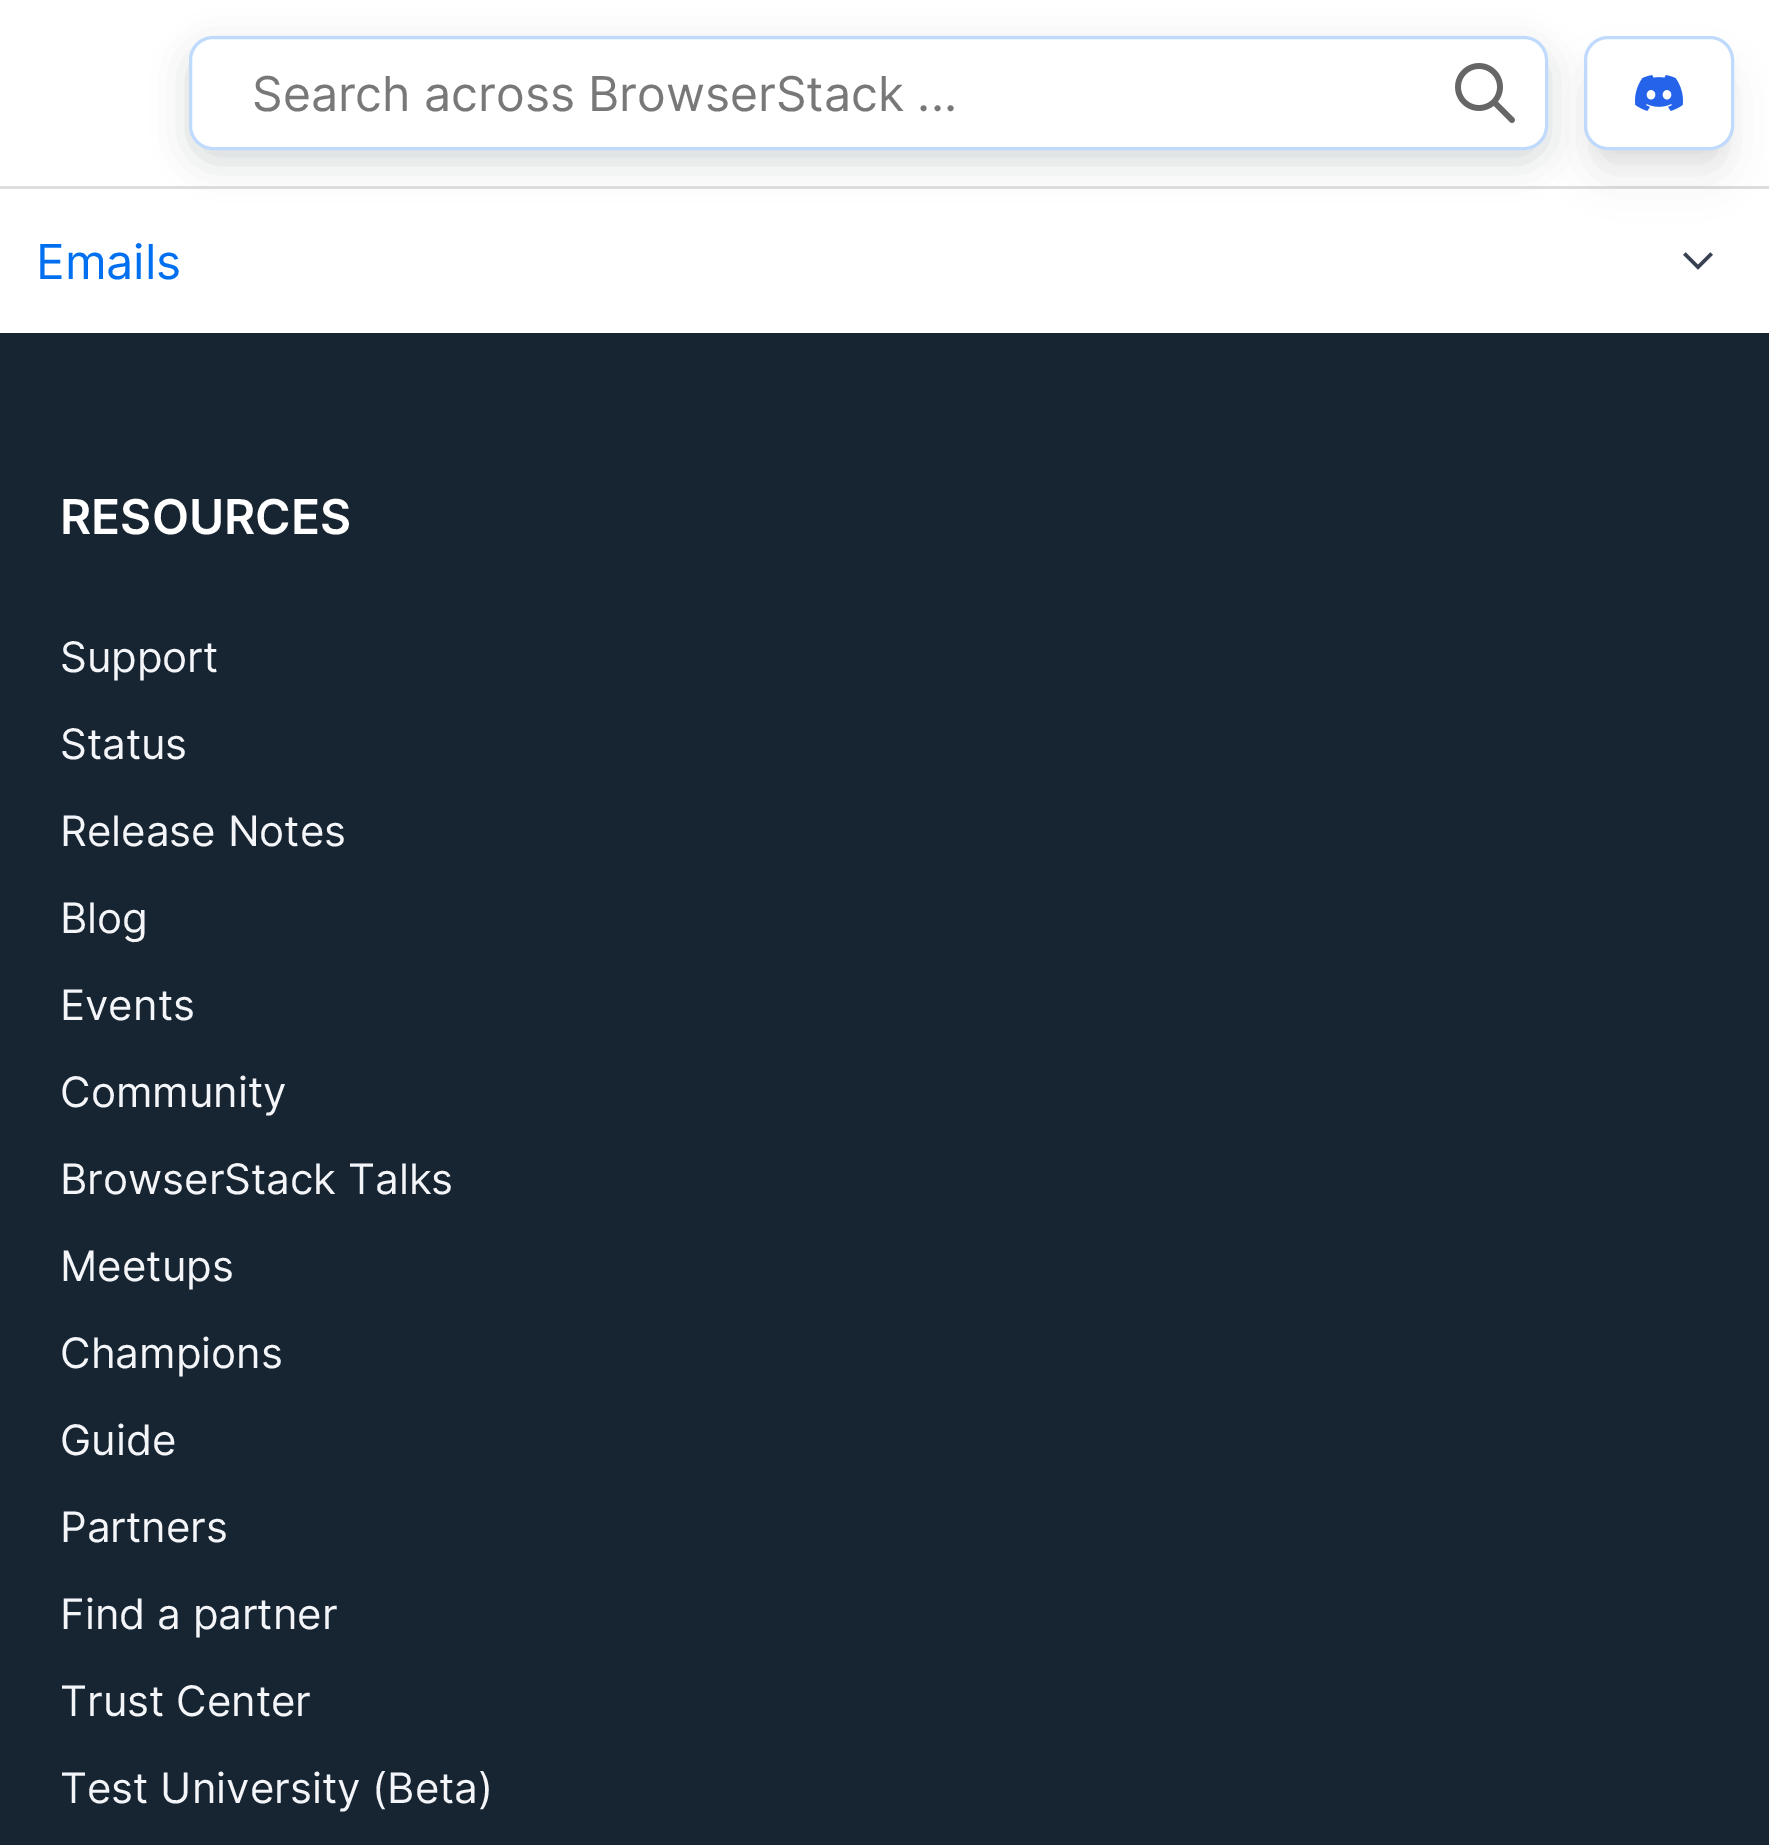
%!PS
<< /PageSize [1769 1845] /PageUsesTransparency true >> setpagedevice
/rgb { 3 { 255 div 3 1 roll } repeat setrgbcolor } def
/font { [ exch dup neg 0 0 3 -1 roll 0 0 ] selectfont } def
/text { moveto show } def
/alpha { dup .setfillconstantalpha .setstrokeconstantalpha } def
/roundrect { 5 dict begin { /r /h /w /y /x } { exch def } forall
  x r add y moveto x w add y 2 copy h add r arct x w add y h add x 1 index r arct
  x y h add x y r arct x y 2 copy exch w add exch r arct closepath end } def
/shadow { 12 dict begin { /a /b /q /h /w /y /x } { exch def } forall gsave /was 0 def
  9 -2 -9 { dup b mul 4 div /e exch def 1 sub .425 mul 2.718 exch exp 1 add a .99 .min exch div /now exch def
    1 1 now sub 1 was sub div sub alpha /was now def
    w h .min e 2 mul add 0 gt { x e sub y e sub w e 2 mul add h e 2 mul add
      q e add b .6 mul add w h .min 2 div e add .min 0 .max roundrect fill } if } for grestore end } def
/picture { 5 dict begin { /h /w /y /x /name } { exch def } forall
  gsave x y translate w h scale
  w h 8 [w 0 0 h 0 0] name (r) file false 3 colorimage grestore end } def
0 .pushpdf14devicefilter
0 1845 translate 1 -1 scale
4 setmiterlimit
23 36 50 rgb
0 0 1769 1845 rectfill
255 255 255 rgb
0 0 1769 333 rectfill
222 222 222 rgb
0 186 1769 3 rectfill
0 0 0 rgb
1590 54 138 102 18 9 0.05 shadow
1593 75 132 96 15 22.5 0.1 shadow
255 255 255 rgb
1585.5 37.5 147 111 22.5 roundrect gsave fill grestore
191 218 252 rgb
3 setlinewidth
stroke
0 31 31 rgb
189 48 1359 114 24 18 0.16 shadow
255 255 255 rgb
190.5 37.5 1356 111 22.5 roundrect gsave fill grestore
191 218 252 rgb
stroke
(img_01.rgb) 1455 63 60 60 picture
(img_02.rgb) 1635 75 48 36 picture
(img_03.rgb) 1683 252 30 18 picture
/Inter-Regular 48 font
120 120 120 rgb
(Search across BrowserStack ...) 252 111 text
0 112 240 rgb
(Emails) 36 279 text
/Inter-SemiBold 48 font
255 255 255 rgb
(RESOURCES) 60 534 text
/Inter-Regular 42 font
243 245 248 rgb
(Support) 60 672 text
(Status) 60 759 text
(Release Notes) 60 846 text
(Blog) 60 933 text
(Events) 60 1020 text
(Community) 60 1107 text
(BrowserStack Talks) 60 1194 text
(Meetups) 60 1281 text
(Champions) 60 1368 text
(Guide) 60 1455 text
(Partners) 60 1542 text
(Find a partner) 60 1629 text
(Trust Center) 60 1716 text
(Test University \(Beta\)) 60 1803 text
.poppdf14devicefilter showpage
